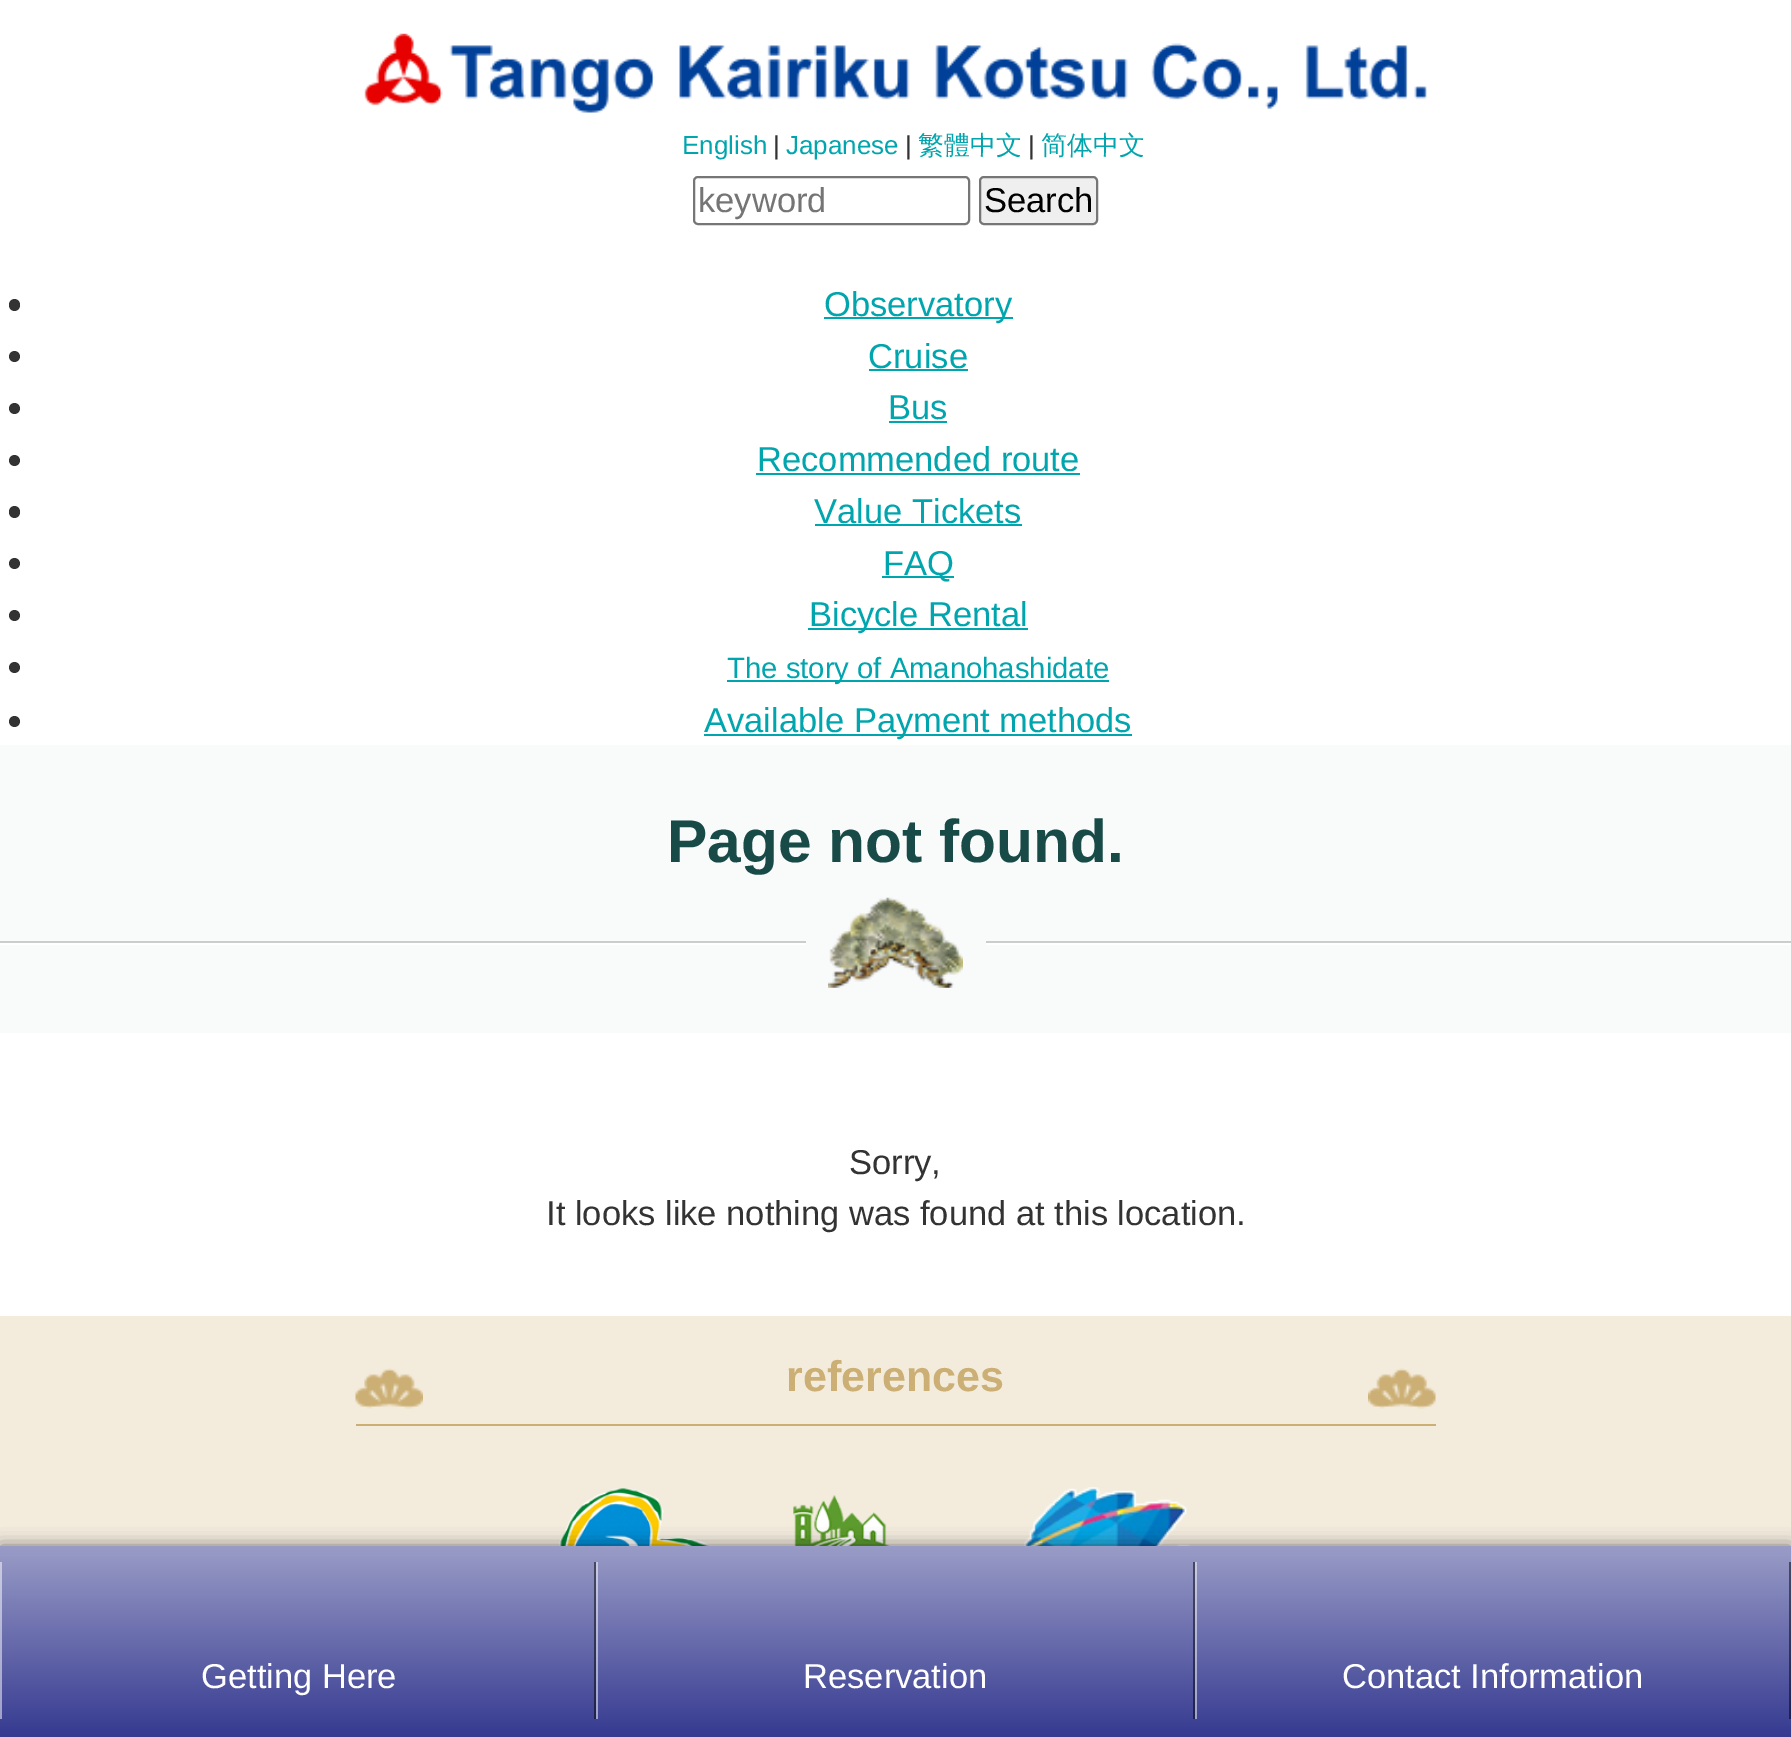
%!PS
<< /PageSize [1791 1737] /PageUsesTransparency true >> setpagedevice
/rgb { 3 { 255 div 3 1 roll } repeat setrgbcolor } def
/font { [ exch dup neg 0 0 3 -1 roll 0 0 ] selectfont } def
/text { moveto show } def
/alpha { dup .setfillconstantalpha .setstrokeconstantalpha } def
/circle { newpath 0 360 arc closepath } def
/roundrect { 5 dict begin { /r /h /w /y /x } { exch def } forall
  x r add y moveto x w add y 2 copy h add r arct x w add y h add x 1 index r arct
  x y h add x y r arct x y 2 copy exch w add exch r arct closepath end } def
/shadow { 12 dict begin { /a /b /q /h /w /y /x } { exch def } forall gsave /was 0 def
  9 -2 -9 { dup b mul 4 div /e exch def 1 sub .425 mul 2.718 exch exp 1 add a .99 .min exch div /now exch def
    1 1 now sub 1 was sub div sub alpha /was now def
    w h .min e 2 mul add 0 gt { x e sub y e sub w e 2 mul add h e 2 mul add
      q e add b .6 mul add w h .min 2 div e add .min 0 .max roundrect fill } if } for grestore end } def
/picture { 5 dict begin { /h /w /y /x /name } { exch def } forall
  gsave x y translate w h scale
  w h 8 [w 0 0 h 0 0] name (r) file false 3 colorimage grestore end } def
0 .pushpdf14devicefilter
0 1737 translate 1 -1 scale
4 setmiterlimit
255 255 255 rgb
0 0 1791 1737 rectfill
(img_01.rgb) 364 33 1063 80 picture
118 118 118 rgb
2 setlinewidth
694 177 275 47 4 roundrect stroke
239 239 239 rgb
980 177 117 47 4 roundrect gsave fill grestore
118 118 118 rgb
stroke
51 51 51 rgb
9 299 11 12 5.5 roundrect fill
0 165 173 rgb
824 317 189 2 rectfill
51 51 51 rgb
14.5 356.5 5.5 circle fill
0 165 173 rgb
869 369 99 2 rectfill
51 51 51 rgb
14.5 408.5 5.5 circle fill
0 165 173 rgb
889 421 58 2 rectfill
51 51 51 rgb
14.5 460.5 5.5 circle fill
0 165 173 rgb
756 473 324 2 rectfill
51 51 51 rgb
9 506 11 12 5.5 roundrect fill
0 165 173 rgb
815 524 207 2 rectfill
51 51 51 rgb
14.5 563.5 5.5 circle fill
0 165 173 rgb
882 576 72 2 rectfill
51 51 51 rgb
14.5 615.5 5.5 circle fill
0 165 173 rgb
808 628 220 2 rectfill
51 51 51 rgb
14.5 667.5 5.5 circle fill
0 165 173 rgb
727 680 382 2 rectfill
51 51 51 rgb
14.5 721.5 5.5 circle fill
0 165 173 rgb
704 734 428 2 rectfill
249 250 250 rgb
0 745 1791 288 rectfill
255 255 255 rgb
0 943 806 2 rectfill
204 204 204 rgb
0 941 806 2 rectfill
255 255 255 rgb
986 943 805 2 rectfill
204 204 204 rgb
986 941 805 2 rectfill
(img_02.rgb) 828 897 135 91 picture
243 236 221 rgb
0 1316 1791 230 rectfill
204 175 116 rgb
356 1424 1080 2 rectfill
(img_03.rgb) 355 1368 68 41 picture
(img_04.rgb) 1368 1368 68 41 picture
(img_05.rgb) 559 1488 154 58 picture
(img_06.rgb) 793 1495 98 51 picture
(img_07.rgb) 1023 1487 168 59 picture
0 0 0 rgb
0 1546 1791 191 0 8.5 0.5 shadow
gsave 0 1546 moveto 1791 0 rlineto 0 191 rlineto -1791 0 rlineto closepath clip newpath
<< /ShadingType 2 /ColorSpace /DeviceRGB /Coords [896 1546 896 1737] /Extend [true true] /Function << /FunctionType 2 /Domain [0 1] /C0 [0.604 0.612 0.78] /C1 [0.212 0.227 0.565] /N 1 >> >> shfill grestore
gsave 1789 1562 moveto 2 0 rlineto 0 157 rlineto -2 0 rlineto closepath clip newpath
<< /ShadingType 2 /ColorSpace /DeviceRGB /Coords [896 1546 896 1737] /Extend [true true] /Function << /FunctionType 2 /Domain [0 1] /C0 [0.302 0.306 0.392] /C1 [0.106 0.114 0.282] /N 1 >> >> shfill grestore
gsave 0 1562 moveto 2 0 rlineto 0 157 rlineto -2 0 rlineto closepath clip newpath
<< /ShadingType 2 /ColorSpace /DeviceRGB /Coords [896 1546 896 1737] /Extend [true true] /Function << /FunctionType 2 /Domain [0 1] /C0 [0.804 0.808 0.89] /C1 [0.608 0.616 0.784] /N 1 >> >> shfill grestore
0.5 alpha
594 1562 2 157 rectfill
1193 1562 2 157 rectfill
255 255 255 rgb
596 1562 2 157 rectfill
1195 1562 2 157 rectfill
/LiberationSans-Regular 26 font
1 alpha
0 165 173 rgb
(English) 682 154 text
51 51 51 rgb
(|) 773 154 text
0 165 173 rgb
(Japanese) 786 154 text
51 51 51 rgb
(|) 905 154 text
/WenQuanYiZenHei-Medium 26 font
0 165 173 rgb
(繁體中文) 918 154 text
/LiberationSans-Regular 26 font
51 51 51 rgb
(|) 1028 154 text
/WenQuanYiZenHei-Medium 26 font
0 165 173 rgb
(简体中文) 1041 154 text
/LiberationSans-Regular 34.5 font
117 117 117 rgb
(keyword) 698 212 text
0 0 0 rgb
(Search) 984 212 text
0 165 173 rgb
(Observatory) 824 316 text
(Cruise) 868 368 text
(Bus) 888 419 text
(Recommended route) 757 471 text
(Value Tickets) 814 523 text
(FAQ) 883 575 text
(Bicycle Rental) 809 626 text
/LiberationSans-Regular 29.25 font
(The story of Amanohashidate) 727 678 text
/LiberationSans-Regular 34.5 font
(Available Payment methods) 704 732 text
/LiberationSans-Bold 60.5 font
24 75 71 rgb
(Page not found.) 667 862 text
/LiberationSans-Regular 34.5 font
51 51 51 rgb
(Sorry,) 849 1174 text
(It looks like nothing was found at this location.) 546 1225 text
/LiberationSans-Bold 43 font
204 175 116 rgb
(references) 786 1391 text
/LiberationSans-Regular 34.5 font
255 255 255 rgb
(Getting Here) 201 1688 text
(Reservation) 803 1688 text
(Contact Information) 1342 1688 text
.poppdf14devicefilter showpage
